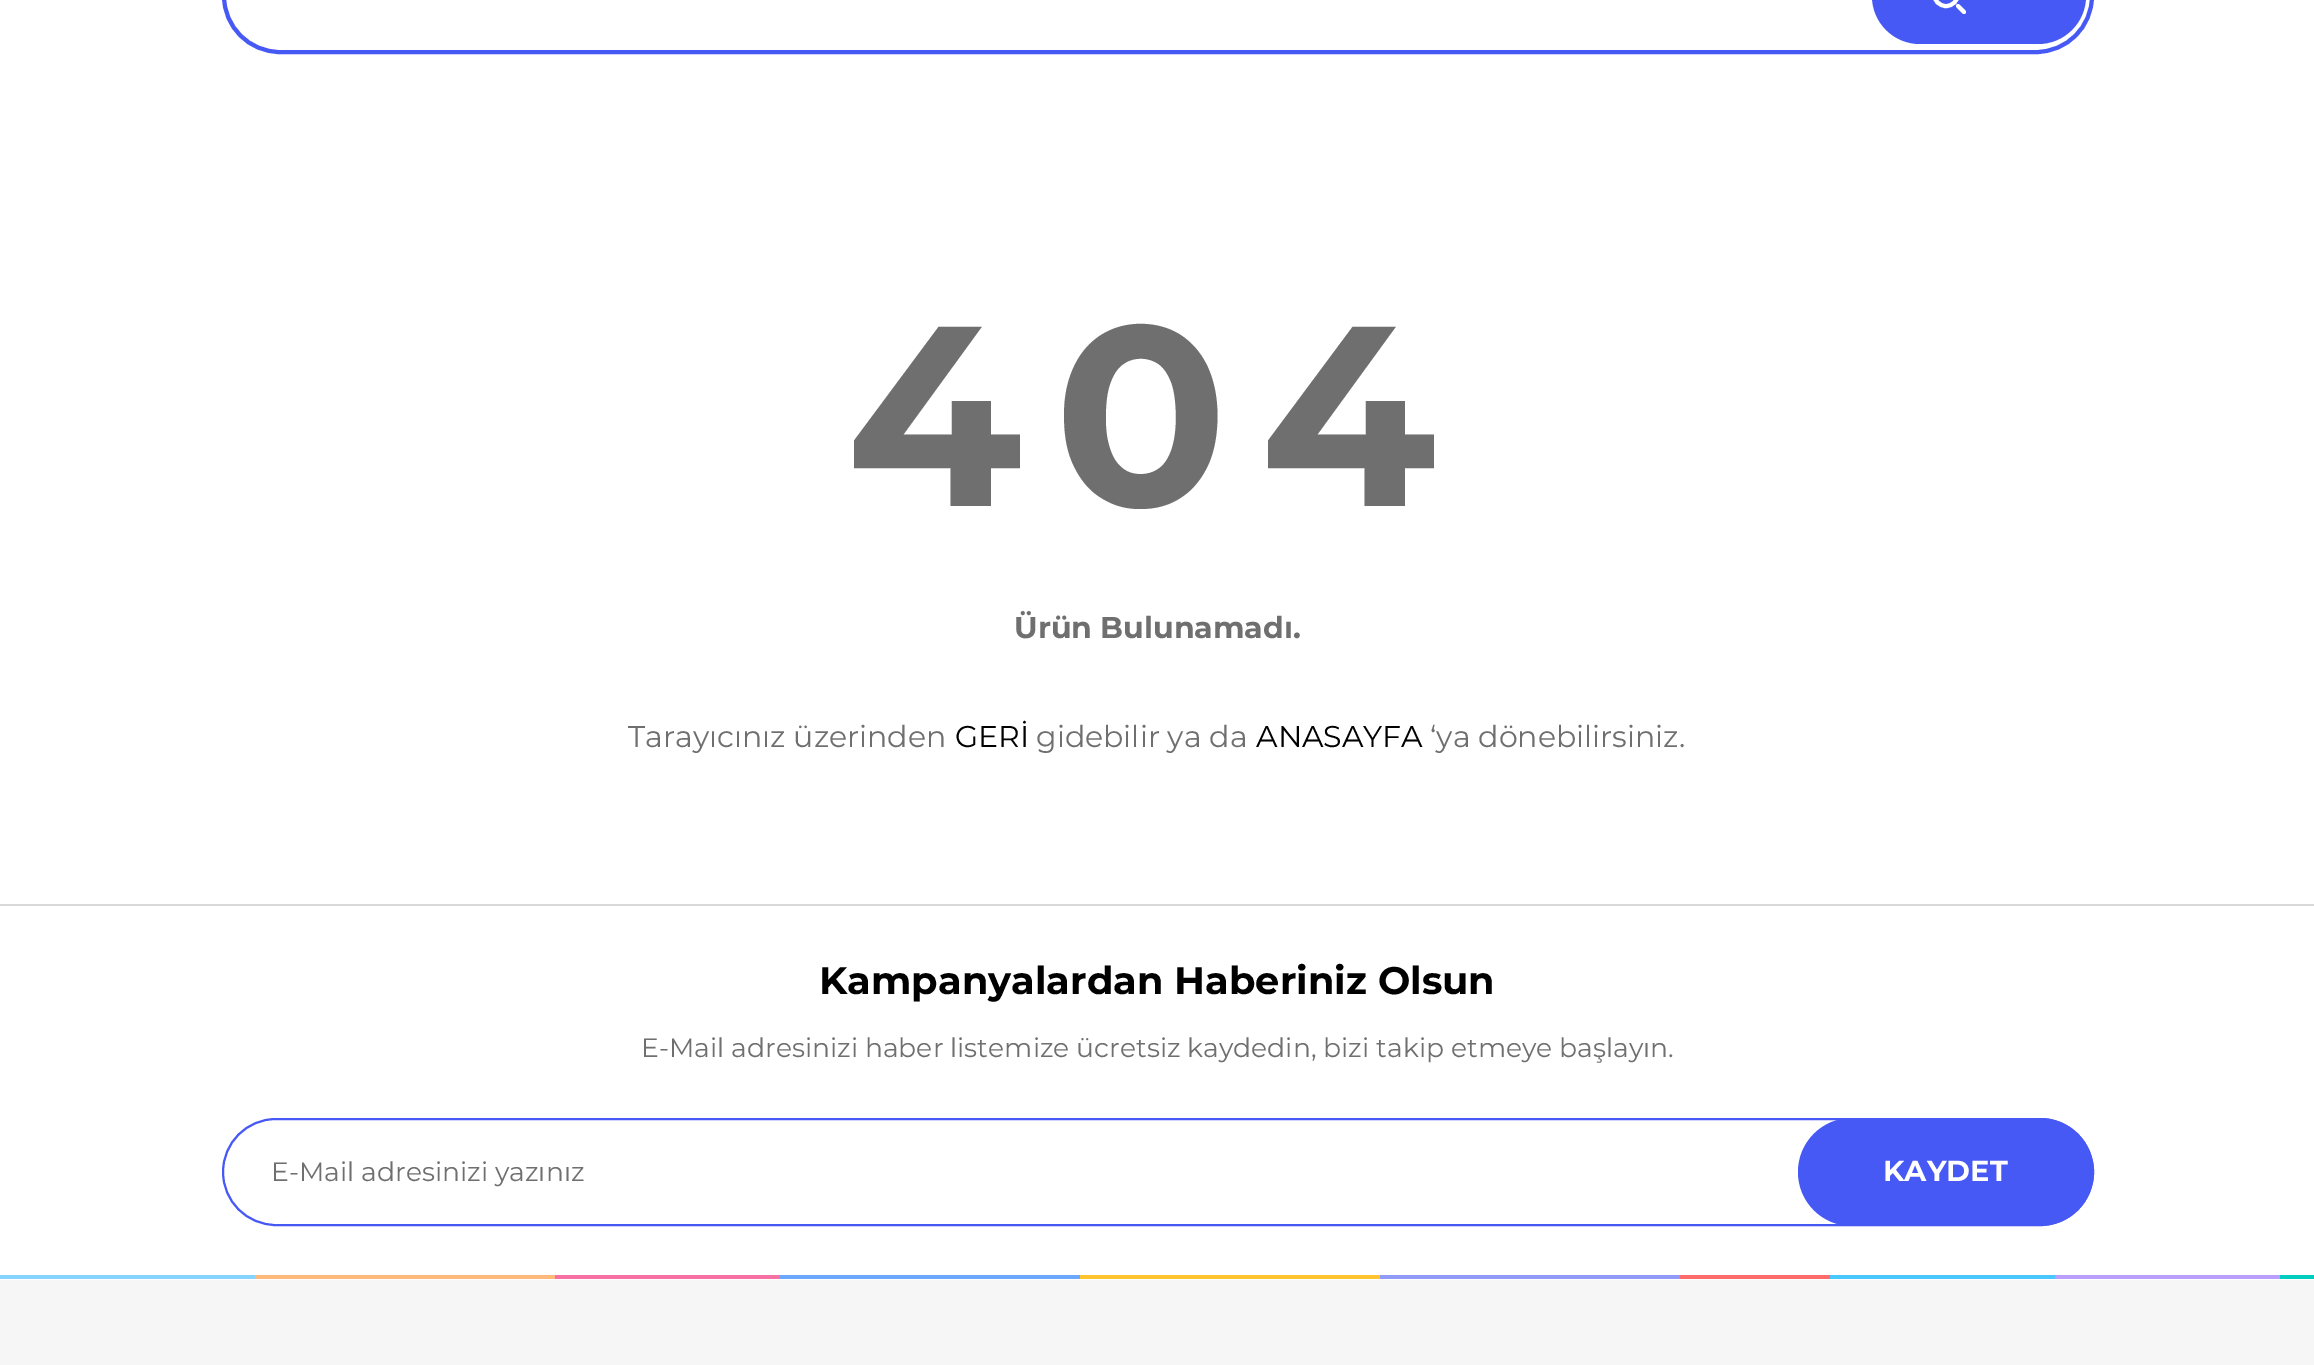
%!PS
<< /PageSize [2314 1365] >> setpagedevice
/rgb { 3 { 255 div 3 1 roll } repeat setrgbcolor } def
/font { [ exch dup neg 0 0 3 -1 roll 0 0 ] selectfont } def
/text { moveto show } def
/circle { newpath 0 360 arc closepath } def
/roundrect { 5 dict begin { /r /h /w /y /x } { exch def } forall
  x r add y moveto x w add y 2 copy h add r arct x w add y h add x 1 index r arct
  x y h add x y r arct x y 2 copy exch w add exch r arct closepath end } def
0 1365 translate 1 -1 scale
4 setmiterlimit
255 255 255 rgb
0 0 2314 1365 rectfill
71 89 245 rgb
4 setlinewidth
224 -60 1868 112 56 roundrect stroke
1872 -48 214 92 48 roundrect fill
255 255 255 rgb
1946 -6 12 circle stroke
1 setlinecap
1964 12 moveto -6 -6 rlineto stroke
217 217 217 rgb
0 904 2314 2 rectfill
71 89 245 rgb
2 setlinewidth
0 setlinecap
223 1119 1870 106 53 roundrect stroke
1798 1118 296 108 54 roundrect fill
0 204 192 rgb
2280 1275 34 4 rectfill
184 159 255 rgb
2055 1275 225 4 rectfill
72 200 255 rgb
1830 1275 225 4 rectfill
255 107 107 rgb
1680 1275 150 4 rectfill
144 155 248 rgb
1380 1275 300 4 rectfill
255 196 46 rgb
1080 1275 300 4 rectfill
109 168 255 rgb
780 1275 300 4 rectfill
247 114 162 rgb
555 1275 225 4 rectfill
255 186 123 rgb
255 1275 300 4 rectfill
134 211 255 rgb
0 1275 255 4 rectfill
246 246 246 rgb
0 1280 2314 85 rectfill
/Montserrat-Bold 256 font
111 111 111 rgb
846 506 moveto 32 0 (404) ashow
/Montserrat-Bold 30 font
(Ürün Bulunamadı.) 1014 638 text
/Montserrat-Regular 30 font
(Tarayıcınız üzerinden) 628 747 text
0 0 0 rgb
(GERİ) 955 747 text
111 111 111 rgb
(gidebilir ya da) 1036 747 text
0 0 0 rgb
(ANASAYFA) 1256 747 text
111 111 111 rgb
(‘ya dönebilirsiniz.) 1430 747 text
/Montserrat-Bold 38.4 font
0 0 0 rgb
(Kampanyalardan Haberiniz Olsun) 819 994 text
/Montserrat-Regular 26.6 font
111 111 111 rgb
(E-Mail adresinizi haber listemize ücretsiz kaydedin, bizi takip etmeye başlayın.) 641 1057 text
(E-Mail adresinizi yazınız) 271 1181 text
/Montserrat-Bold 29 font
255 255 255 rgb
(KAYDET) 1883 1181 text
showpage
